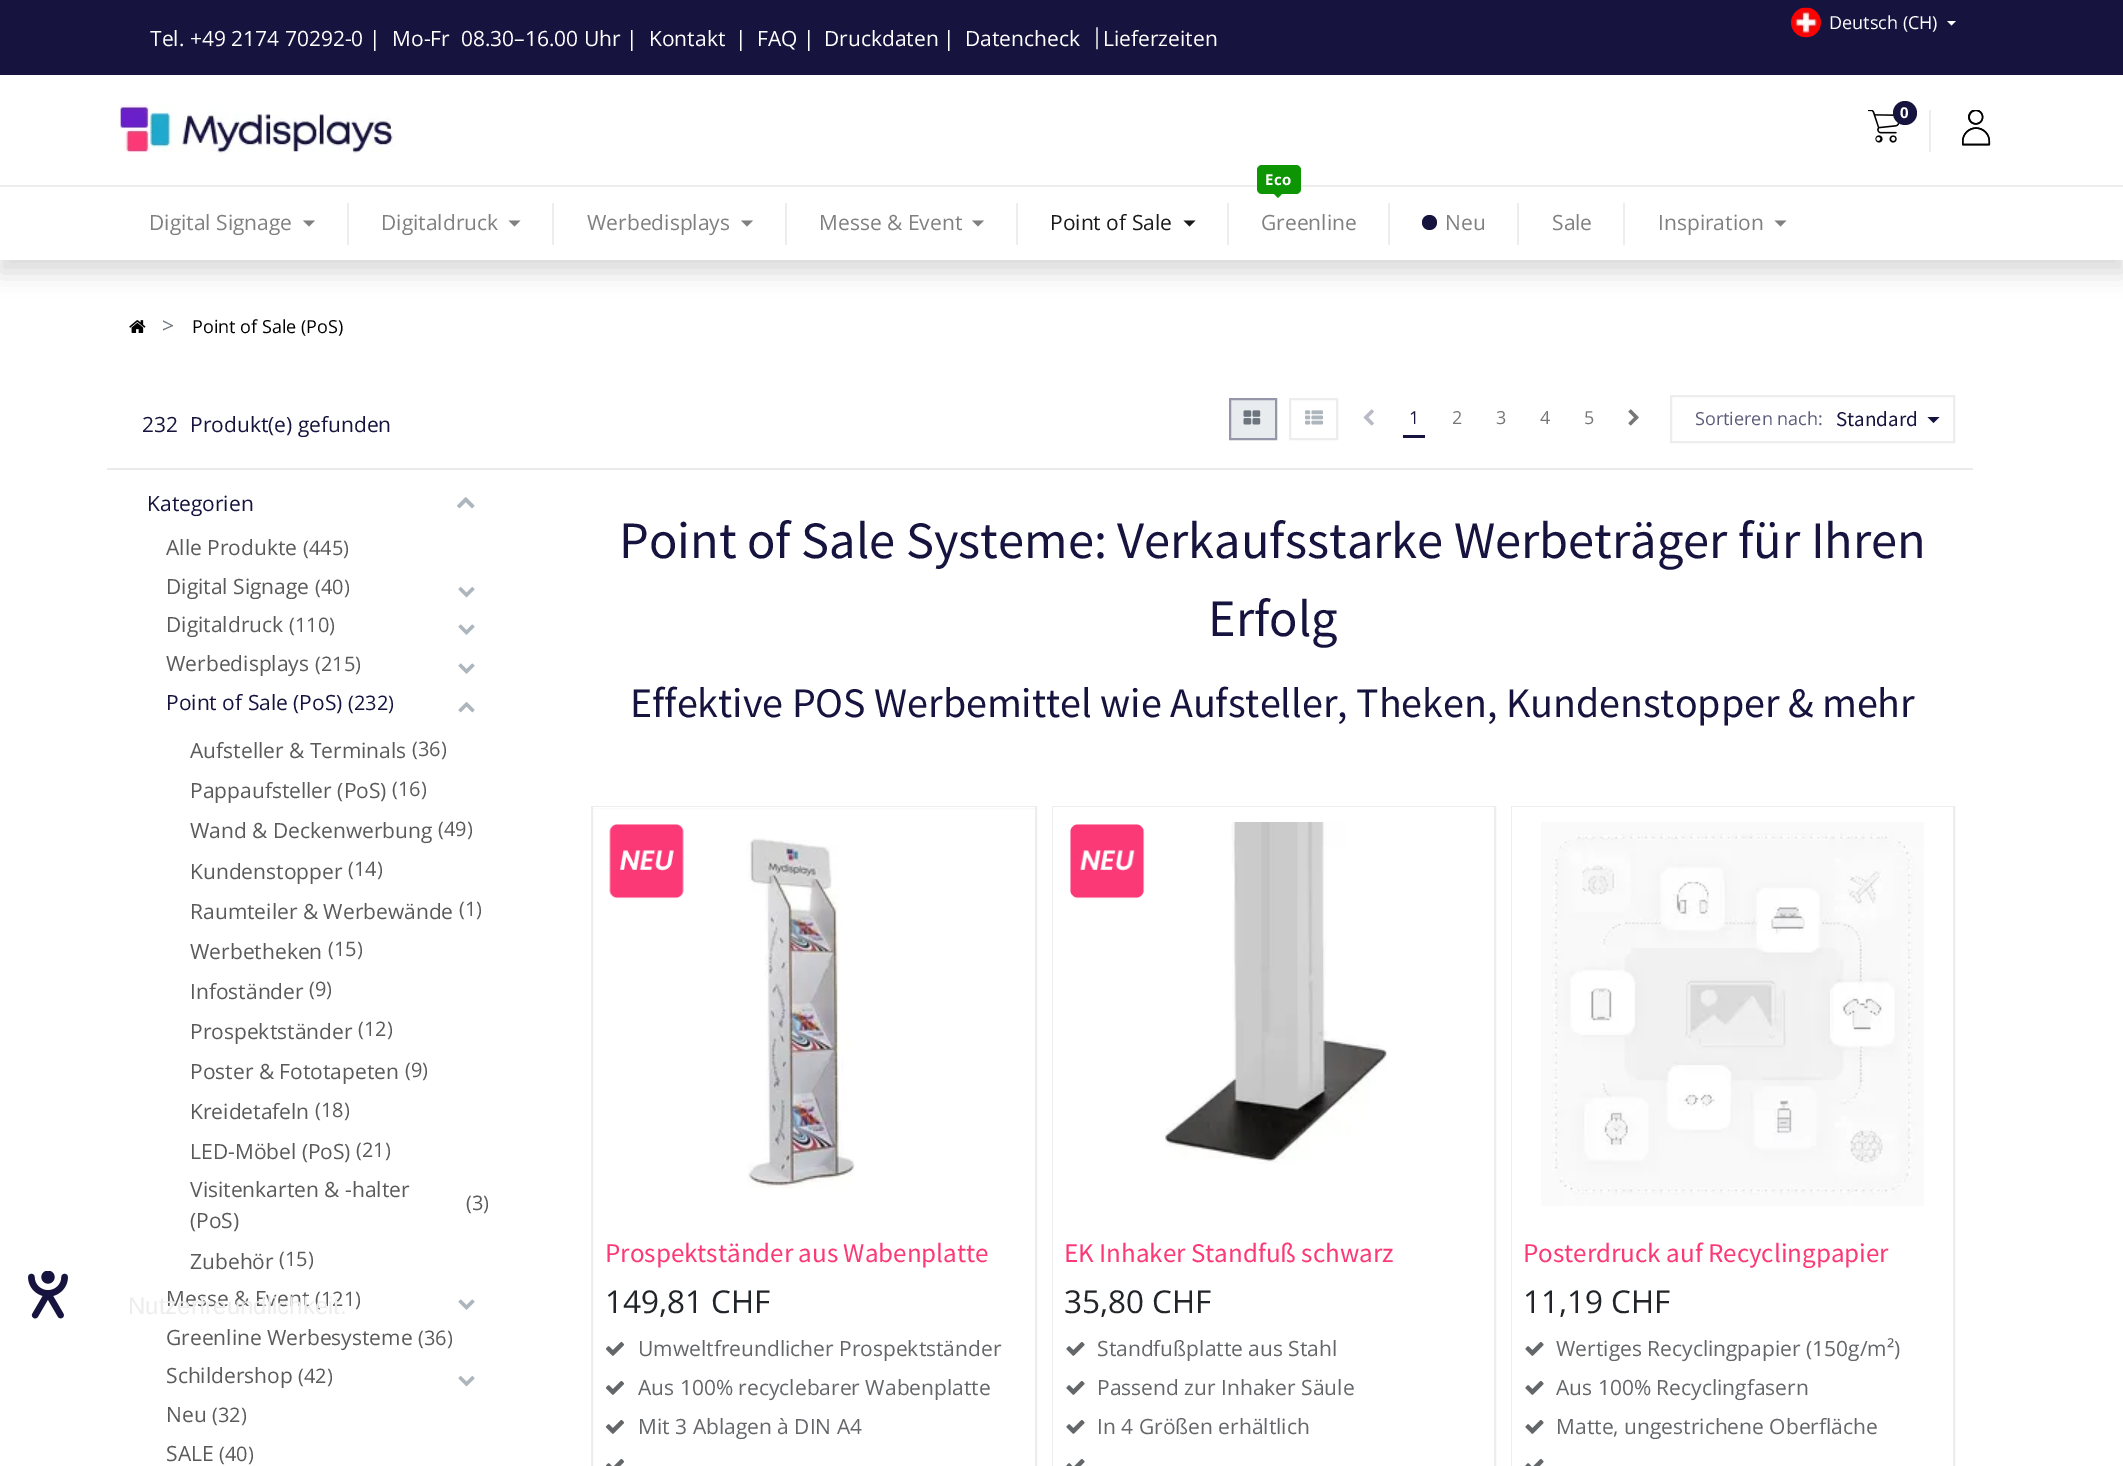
%!PS
<< /PageSize [2123 1466] /PageUsesTransparency true >> setpagedevice
/rgb { 3 { 255 div 3 1 roll } repeat setrgbcolor } def
/font { [ exch dup neg 0 0 3 -1 roll 0 0 ] selectfont } def
/text { moveto show } def
/alpha { dup .setfillconstantalpha .setstrokeconstantalpha } def
/circle { newpath 0 360 arc closepath } def
/roundrect { 5 dict begin { /r /h /w /y /x } { exch def } forall
  x r add y moveto x w add y 2 copy h add r arct x w add y h add x 1 index r arct
  x y h add x y r arct x y 2 copy exch w add exch r arct closepath end } def
/shadow { 12 dict begin { /a /b /q /h /w /y /x } { exch def } forall gsave /was 0 def
  9 -2 -9 { dup b mul 4 div /e exch def 1 sub .425 mul 2.718 exch exp 1 add a .99 .min exch div /now exch def
    1 1 now sub 1 was sub div sub alpha /was now def
    w h .min e 2 mul add 0 gt { x e sub y e sub w e 2 mul add h e 2 mul add
      q e add b .6 mul add w h .min 2 div e add .min 0 .max roundrect fill } if } for grestore end } def
/picture { 5 dict begin { /h /w /y /x /name } { exch def } forall
  gsave x y translate w h scale
  w h 8 [w 0 0 h 0 0] name (r) file false 3 colorimage grestore end } def
0 .pushpdf14devicefilter
0 1466 translate 1 -1 scale
4 setmiterlimit
255 255 255 rgb
0 0 2123 1466 rectfill
0 0 0 rgb
0 12 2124 260 0 12 0.15 shadow
255 255 255 rgb
0 75 2123 185 rectfill
22 20 63 rgb
0 0 2123 75 rectfill
(img_01.rgb) 1791 7 30 31 picture
255 255 255 rgb
1947 21 moveto 9 0 rlineto -4.5 4.5 rlineto closepath fill
(img_02.rgb) 116 104 280 51 picture
237 237 237 rgb
1929 110 2 42 rectfill
(img_03.rgb) 1868 110 32 33 picture
22 20 63 rgb
1905 113 12 circle fill
(img_04.rgb) 1962 110 29 36 picture
(img_05.rgb) 1962 110 29 36 picture
237 237 237 rgb
0 185 2123 2 rectfill
128 128 128 rgb
303 220.5 moveto 12 0 rlineto -6 6 rlineto closepath fill
237 237 237 rgb
347 203 2 42 rectfill
128 128 128 rgb
508.5 220.5 moveto 12 0 rlineto -6 6 rlineto closepath fill
237 237 237 rgb
552 203 2 42 rectfill
128 128 128 rgb
741 220.5 moveto 12 0 rlineto -6 6 rlineto closepath fill
237 237 237 rgb
785 203 2 42 rectfill
128 128 128 rgb
972 220.5 moveto 12 0 rlineto -6 6 rlineto closepath fill
237 237 237 rgb
1016 203 2 42 rectfill
26 26 26 rgb
1183.5 220.5 moveto 12 0 rlineto -6 6 rlineto closepath fill
237 237 237 rgb
1227 203 2 42 rectfill
14 149 4 rgb
1257 165 44 29 5 roundrect fill
1272 192 moveto 12 0 rlineto -6 6 rlineto closepath fill
237 237 237 rgb
1388 203 2 42 rectfill
22 20 63 rgb
1429.5 222.5 7.5 circle fill
237 237 237 rgb
1517 203 2 42 rectfill
1623 203 2 42 rectfill
128 128 128 rgb
1774.5 220.5 moveto 12 0 rlineto -6 6 rlineto closepath fill
(img_06.rgb) 129 320 17 13 picture
234 234 234 rgb
107 468 1866 2 rectfill
233 236 239 rgb
1230 399 moveto 46 0 rlineto 0 40 rlineto -46 0 rlineto closepath gsave fill grestore
149 150 169 rgb
2 setlinewidth
stroke
(img_07.rgb) 1243 410 18 15 picture
237 237 237 rgb
1290 399 47 40 rectstroke
(img_08.rgb) 1305 410 18 15 picture
(img_09.rgb) 1363 409 11 17 picture
22 20 63 rgb
1403 435 22 3 rectfill
(img_10.rgb) 1628 409 11 17 picture
237 237 237 rgb
1671 396 283 46 rectstroke
22 20 63 rgb
1927.5 417 moveto 12 0 rlineto -6 6 rlineto closepath fill
(img_11.rgb) 457 497 18 12 picture
(img_12.rgb) 458 587 17 11 picture
(img_13.rgb) 458 624 17 11 picture
(img_13.rgb) 458 663 17 11 picture
(img_14.rgb) 458 702 17 11 picture
(img_13.rgb) 458 1299 17 11 picture
(img_12.rgb) 458 1376 17 11 picture
237 237 237 rgb
592 807 444 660 rectstroke
255 255 255 rgb
593 807 442 1 rectfill
(img_15.rgb) 609 824 75 75 picture
(img_16.rgb) 747 838 108 351 picture
(img_17.rgb) 606 1341 19 15 picture
(img_17.rgb) 606 1380 19 15 picture
(img_17.rgb) 606 1419 19 15 picture
(img_18.rgb) 606 1458 19 8 picture
237 237 237 rgb
1053 807 442 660 rectstroke
255 255 255 rgb
1053 807 441 659 rectfill
(img_19.rgb) 1070 824 75 75 picture
(img_20.rgb) 1165 822 222 342 picture
(img_21.rgb) 1066 1342 19 14 picture
(img_21.rgb) 1066 1381 19 14 picture
(img_21.rgb) 1066 1420 19 14 picture
(img_22.rgb) 1066 1459 19 7 picture
237 237 237 rgb
1512 807 442 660 rectstroke
255 255 255 rgb
1512 807 441 659 rectfill
(img_23.rgb) 1541 822 383 384 picture
(img_21.rgb) 1525 1342 19 14 picture
(img_21.rgb) 1525 1381 19 14 picture
(img_21.rgb) 1525 1420 19 14 picture
(img_22.rgb) 1525 1459 19 7 picture
(img_24.rgb) 28 1271 40 48 picture
/OpenSans-Regular 18 font
(Deutsch \(CH\)) 1829 29 text
/OpenSans-Regular 21 font
(Tel. +49 2174 70292-0 |) 150 46 text
(Mo-Fr  08.30–16.00 Uhr |) 392 46 text
(Kontakt) 649 46 text
(|) 735 46 text
(FAQ |) 757 46 text
(Druckdaten) 824 46 text
(|) 943 46 text
(Datencheck) 965 46 text
/OpenSans-Regular 22 font
246 246 246 rgb
(|) 1091 44 text
/OpenSans-Regular 21 font
255 255 255 rgb
(Lieferzeiten) 1103 46 text
/OpenSans-Bold 15 font
(0) 1900 118 text
/OpenSans-Regular 21 font
128 128 128 rgb
(Digital Signage) 149 230 text
(Digitaldruck) 381 230 text
(Werbedisplays) 587 230 text
(Messe & Event) 819 230 text
26 26 26 rgb
(Point of Sale) 1050 230 text
/OpenSans-Bold 15 font
255 255 255 rgb
1265 185 moveto 0.5 0 (Eco) ashow
/OpenSans-Regular 21 font
128 128 128 rgb
(Greenline) 1261 230 text
(Neu) 1445 230 text
(Sale) 1552 230 text
(Inspiration) 1658 230 text
108 117 125 rgb
(>) 162 333 text
/OpenSans-Regular 18 font
0 0 0 rgb
(Point of Sale \(PoS\)) 192 333 text
/OpenSans-Regular 21 font
22 20 63 rgb
(232) 142 432 text
(Produkt\(e\) gefunden) 190 432 text
/OpenSans-Regular 18 font
(1) 1409 424 text
118 118 118 rgb
(2) 1452 424 text
(3) 1496 424 text
(4) 1540 424 text
(5) 1584 424 text
92 91 121 rgb
(Sortieren nach:) 1695 425 text
/SourceSansPro-Regular 21 font
22 20 63 rgb
(Standard) 1836 426 text
/OpenSans-Regular 21 font
(Kategorien) 147 511 text
90 90 90 rgb
(Alle Produkte) 166 555 text
/OpenSans-Regular 20 font
(\(445\)) 303 555 text
/OpenSans-Regular 21 font
(Digital Signage) 166 594 text
/OpenSans-Regular 20 font
(\(40\)) 315 594 text
/OpenSans-Regular 21 font
(Digitaldruck) 166 632 text
/OpenSans-Regular 20 font
(\(110\)) 289 632 text
/OpenSans-Regular 21 font
(Werbedisplays) 166 671 text
/OpenSans-Regular 20 font
(\(215\)) 315 671 text
/OpenSans-Regular 21 font
22 20 63 rgb
(Point of Sale \(PoS\)) 166 710 text
/OpenSans-Regular 20 font
(\(232\)) 348 710 text
/OpenSans-Regular 21 font
90 90 90 rgb
(Aufsteller & Terminals) 190 758 text
/OpenSans-Regular 20 font
(\(36\)) 412 756 text
/OpenSans-Regular 21 font
(Pappaufsteller \(PoS\)) 190 798 text
/OpenSans-Regular 20 font
(\(16\)) 392 796 text
/OpenSans-Regular 21 font
(Wand & Deckenwerbung) 190 838 text
/OpenSans-Regular 20 font
(\(49\)) 438 836 text
/OpenSans-Regular 21 font
(Kundenstopper) 190 879 text
/OpenSans-Regular 20 font
(\(14\)) 348 876 text
/OpenSans-Regular 21 font
(Raumteiler & Werbewände) 190 919 text
/OpenSans-Regular 20 font
(\(1\)) 459 916 text
/OpenSans-Regular 21 font
(Werbetheken) 190 959 text
/OpenSans-Regular 20 font
(\(15\)) 328 956 text
/OpenSans-Regular 21 font
(Infoständer) 190 999 text
/OpenSans-Regular 20 font
(\(9\)) 309 996 text
/OpenSans-Regular 21 font
(Prospektständer) 190 1039 text
/OpenSans-Regular 20 font
(\(12\)) 358 1036 text
/OpenSans-Regular 21 font
(Poster & Fototapeten) 190 1079 text
/OpenSans-Regular 20 font
(\(9\)) 405 1077 text
/OpenSans-Regular 21 font
(Kreidetafeln) 190 1119 text
/OpenSans-Regular 20 font
(\(18\)) 315 1117 text
/OpenSans-Regular 21 font
(LED-Möbel \(PoS\)) 190 1159 text
/OpenSans-Regular 20 font
(\(21\)) 356 1157 text
/OpenSans-Regular 21 font
(Visitenkarten & -halter) 190 1197 text
(\(PoS\)) 190 1228 text
/OpenSans-Regular 20 font
(\(3\)) 466 1210 text
/OpenSans-Regular 21 font
(Zubehör) 190 1269 text
/OpenSans-Regular 20 font
(\(15\)) 279 1266 text
/OpenSans-Regular 21 font
(Messe & Event) 166 1306 text
/OpenSans-Regular 20 font
(\(121\)) 315 1306 text
/OpenSans-Regular 21 font
(Greenline Werbesysteme) 166 1345 text
/OpenSans-Regular 20 font
(\(36\)) 418 1345 text
/OpenSans-Regular 21 font
(Schildershop) 166 1383 text
/OpenSans-Regular 20 font
(\(42\)) 298 1383 text
/OpenSans-Regular 21 font
(Neu) 166 1422 text
/OpenSans-Regular 20 font
(\(32\)) 212 1422 text
/OpenSans-Regular 21 font
(SALE) 166 1461 text
/OpenSans-Regular 20 font
(\(40\)) 219 1461 text
/SourceSansPro-Regular 52.5 font
22 20 63 rgb
(Point of Sale Systeme: Verkaufsstarke Werbeträger für Ihren) 619 558 text
(Erfolg) 1208 636 text
/SourceSansPro-Regular 42 font
(Effektive POS Werbemittel wie Aufsteller, Theken, Kundenstopper & mehr) 630 717 text
/SourceSansPro-Regular 27 font
251 57 118 rgb
(Prospektständer aus Wabenplatte) 605 1262 text
/OpenSans-Regular 31.5 font
33 37 41 rgb
(149,81 CHF) 605 1313 text
/OpenSans-Regular 21 font
100 102 105 rgb
(Umweltfreundlicher Prospektständer) 638 1356 text
(Aus 100% recyclebarer Wabenplatte) 638 1395 text
(Mit 3 Ablagen à DIN A4) 638 1434 text
/SourceSansPro-Regular 27 font
251 57 118 rgb
(EK Inhaker Standfuß schwarz) 1064 1262 text
/OpenSans-Regular 31.5 font
33 37 41 rgb
(35,80 CHF) 1064 1313 text
/OpenSans-Regular 21 font
100 102 105 rgb
(Standfußplatte aus Stahl) 1097 1356 text
(Passend zur Inhaker Säule) 1097 1395 text
(In 4 Größen erhältlich) 1097 1434 text
/SourceSansPro-Regular 27 font
251 57 118 rgb
(Posterdruck auf Recyclingpapier) 1523 1262 text
/OpenSans-Regular 31.5 font
33 37 41 rgb
(11,19 CHF) 1523 1313 text
/OpenSans-Regular 21 font
100 102 105 rgb
(Wertiges Recyclingpapier \(150g/m²\)) 1556 1356 text
(Aus 100% Recyclingfasern) 1556 1395 text
(Matte, ungestrichene Oberfläche) 1556 1434 text
/LiberationSans-Regular 24 font
237 237 237 rgb
(Nutzerfreundlichkeit.) 128 1314 text
.poppdf14devicefilter showpage
